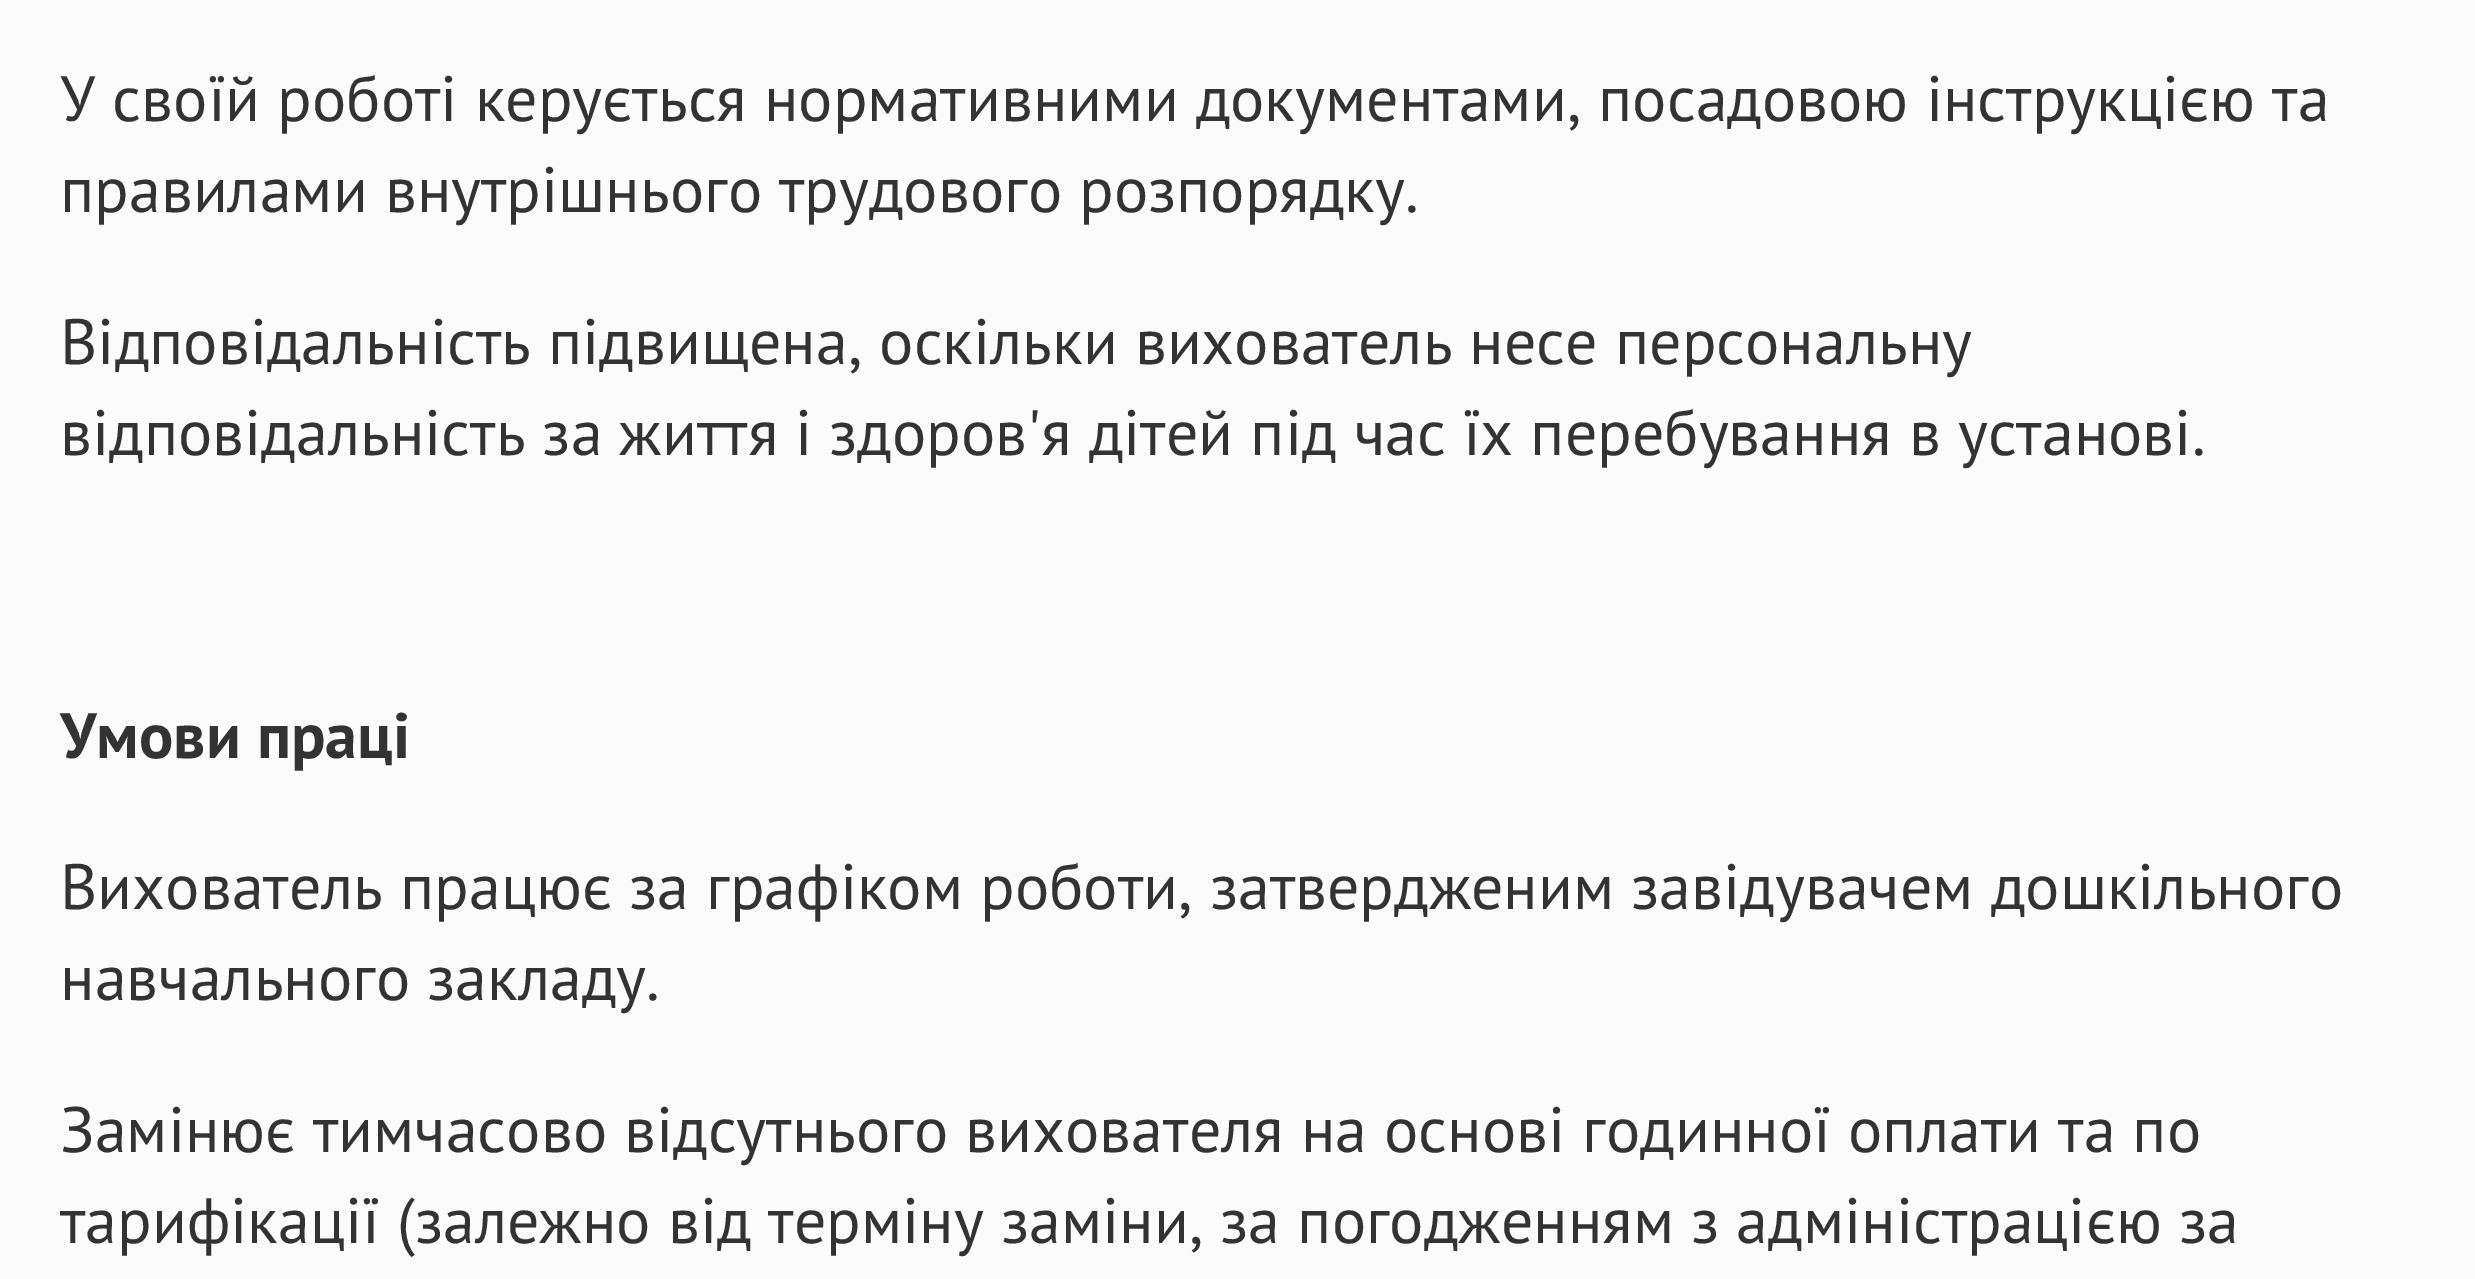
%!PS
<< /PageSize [2475 1279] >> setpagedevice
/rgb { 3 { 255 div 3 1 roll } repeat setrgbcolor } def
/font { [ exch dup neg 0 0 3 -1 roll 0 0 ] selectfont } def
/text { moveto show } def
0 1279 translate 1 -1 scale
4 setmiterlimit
251 251 251 rgb
0 0 2475 1279 rectfill
/PTSans-Regular 64 font
51 51 51 rgb
(У своїй роботі керується нормативними документами, посадовою інструкцією та) 60 121 text
(правилами внутрішнього трудового розпорядку.) 60 212 text
(Відповідальність підвищена, оскільки вихователь несе персональну) 60 364 text
(відповідальність за життя і здоров'я дітей під час їх перебування в установі.) 60 455 text
/PTSans-Bold 64 font
(Умови праці) 60 758 text
/PTSans-Regular 64 font
(Вихователь працює за графіком роботи, затвердженим завідувачем дошкільного) 60 909 text
(навчального закладу.) 60 1000 text
(Замінює тимчасово відсутнього вихователя на основі годинної оплати та по) 60 1152 text
(тарифікації \(залежно від терміну заміни, за погодженням з адміністрацією за) 60 1243 text
showpage
